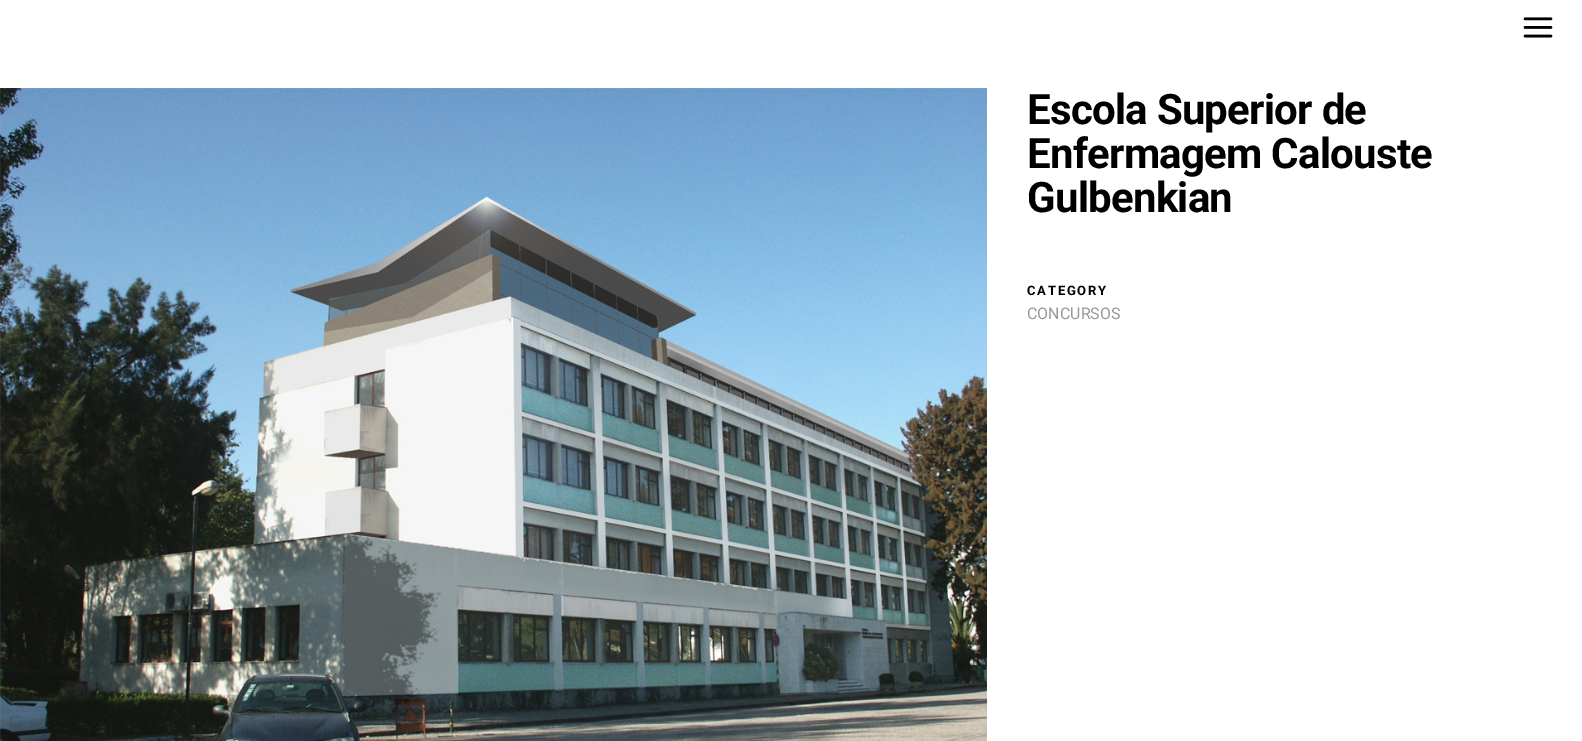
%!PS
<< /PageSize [1582 741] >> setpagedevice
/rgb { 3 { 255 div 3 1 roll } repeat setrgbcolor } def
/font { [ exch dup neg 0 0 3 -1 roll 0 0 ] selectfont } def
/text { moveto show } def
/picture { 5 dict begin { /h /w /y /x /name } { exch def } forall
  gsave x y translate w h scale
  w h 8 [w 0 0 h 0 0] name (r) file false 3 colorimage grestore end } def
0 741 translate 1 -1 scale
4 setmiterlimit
255 255 255 rgb
0 0 1582 741 rectfill
(img_01.rgb) 1523 17 30 21 picture
(img_02.rgb) 0 88 987 653 picture
/Roboto-Bold 42 font
0 0 0 rgb
1027 124 moveto -0.75 0 (Escola Superior de) ashow
1027 168 moveto -0.75 0 (Enfermagem Calouste) ashow
1027 212 moveto -0.75 0 (Gulbenkian) ashow
/Roboto-Bold 13 font
1027 295 moveto 1.75 0 (CATEGORY) ashow
/Roboto-Regular 16 font
153 153 153 rgb
(CONCURSOS) 1027 319 text
showpage
